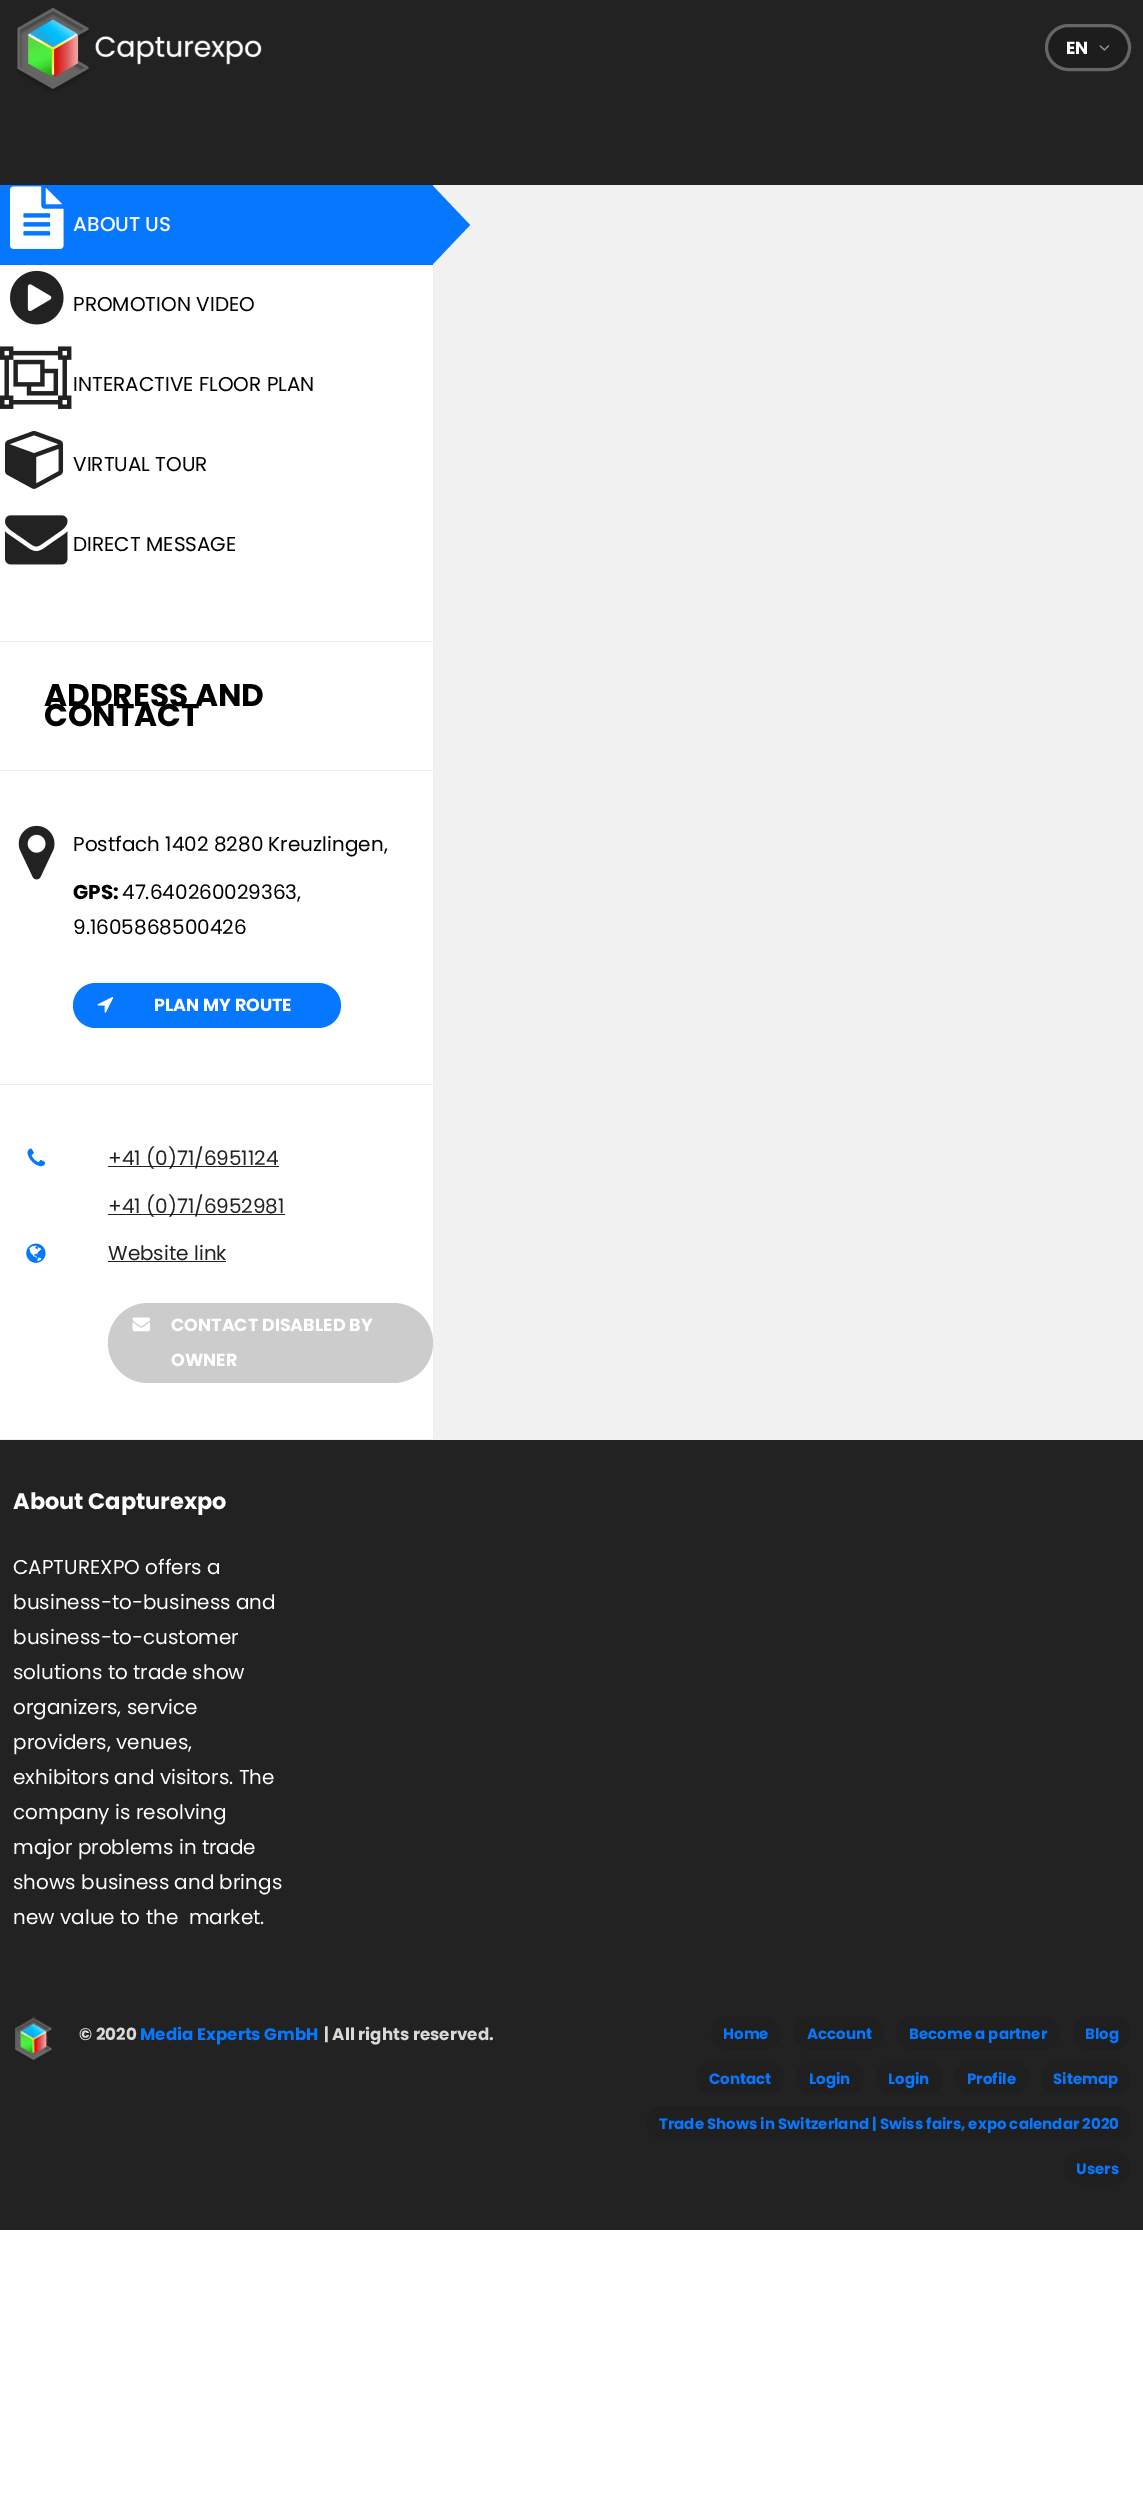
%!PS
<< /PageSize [1143 2507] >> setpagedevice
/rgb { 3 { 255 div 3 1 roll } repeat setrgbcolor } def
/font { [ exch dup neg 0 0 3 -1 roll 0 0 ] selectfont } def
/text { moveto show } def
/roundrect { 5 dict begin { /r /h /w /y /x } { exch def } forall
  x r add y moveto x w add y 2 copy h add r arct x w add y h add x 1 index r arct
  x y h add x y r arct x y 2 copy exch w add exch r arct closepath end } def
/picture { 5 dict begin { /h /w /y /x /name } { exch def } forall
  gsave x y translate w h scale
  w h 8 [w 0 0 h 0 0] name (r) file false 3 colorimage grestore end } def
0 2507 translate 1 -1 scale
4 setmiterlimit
255 255 255 rgb
0 0 1143 2507 rectfill
34 34 34 rgb
0 0 1143 185 rectfill
(img_01.rgb) 16 7 246 85 picture
29 29 29 rgb
1046.5 25.5 83 44 22 roundrect gsave fill grestore
102 102 102 rgb
3 setlinewidth
stroke
(img_02.rgb) 1099 45 11 6 picture
241 241 241 rgb
434 185 709 1255 rectfill
238 238 238 rgb
625 185 518 1 rectfill
237 237 237 rgb
433 185 1 1255 rectfill
0 641 433 1 rectfill
6 119 255 rgb
0 185 433 80 rectfill
(img_03.rgb) 10 186 54 63 picture
432 265 moveto 0 -80 rlineto 38 40 rlineto closepath fill
(img_04.rgb) 10 270 54 55 picture
(img_05.rgb) 0 346 72 63 picture
(img_06.rgb) 5 430 59 59 picture
(img_07.rgb) 5 515 63 50 picture
237 237 237 rgb
0 770 433 1 rectfill
0 1084 433 1 rectfill
(img_08.rgb) 18 825 37 55 picture
6 119 255 rgb
73 983 268 45 22.5 roundrect fill
(img_09.rgb) 97 997 17 16 picture
237 237 237 rgb
0 1439 433 1 rectfill
(img_10.rgb) 27 1148 19 19 picture
34 34 34 rgb
108 1166 171 1 rectfill
108 1214 177 1 rectfill
(img_11.rgb) 26 1243 20 20 picture
108 1261 118 1 rectfill
204 204 204 rgb
108 1303 325 80 40 roundrect fill
(img_12.rgb) 132 1317 18 15 picture
34 34 34 rgb
0 1440 1143 790 rectfill
(img_13.rgb) 15 2016 38 45 picture
31 31 31 rgb
711 2016 70 34 17 roundrect fill
794 2016 90 34 17 roundrect fill
896 2016 164 34 17 roundrect fill
1073 2016 58 34 17 roundrect fill
696 2061 88 34 17 roundrect fill
796 2061 68 34 17 roundrect fill
876 2061 67 34 17 roundrect fill
955 2061 74 34 17 roundrect fill
1041 2061 90 34 17 roundrect fill
646 2106 485 34 17 roundrect fill
1064 2151 67 34 17 roundrect fill
/Poppins-Bold 17.5 font
255 255 255 rgb
(EN) 1066 54 text
/Poppins-Medium 20 font
(ABOUT US) 73 231 text
/Poppins-Regular 20 font
0 0 0 rgb
(PROMOTION VIDEO) 73 311 text
(INTERACTIVE FLOOR PLAN) 73 391 text
(VIRTUAL TOUR) 73 471 text
(DIRECT MESSAGE) 73 551 text
/Poppins-Bold 31.25 font
(ADDRESS AND) 44 706 text
(CONTACT) 44 726 text
/Poppins-Regular 20 font
(Postfach 1402 8280 Kreuzlingen,) 73 851 text
/Poppins-Bold 20 font
(GPS:) 73 899 text
/Poppins-Regular 20 font
(47.640260029363,) 122 899 text
(9.1605868500426) 73 934 text
/Poppins-Bold 17.5 font
255 255 255 rgb
(PLAN MY ROUTE) 154 1011 text
/Poppins-Regular 20 font
34 34 34 rgb
(+41 \(0\)71/6951124) 108 1165 text
(+41 \(0\)71/6952981) 108 1213 text
(Website link) 108 1260 text
/Poppins-Bold 17.5 font
255 255 255 rgb
(CONTACT DISABLED BY) 171 1331 text
(OWNER) 171 1366 text
/Poppins-Bold 22.5 font
(About Capturexpo) 13 1509 text
/Poppins-Regular 20 font
(CAPTUREXPO offers a) 13 1574 text
(business-to-business and) 13 1609 text
(business-to-customer) 13 1644 text
(solutions to trade show) 13 1679 text
(organizers, service) 13 1714 text
(providers, venues,) 13 1749 text
(exhibitors and visitors. The) 13 1784 text
(company is resolving) 13 1819 text
(major problems in trade) 13 1854 text
(shows business and brings) 13 1889 text
(new value to the  market.) 13 1924 text
/Poppins-Bold 16.75 font
217 217 217 rgb
(© 2020) 79 2040 text
6 119 255 rgb
(Media Experts GmbH) 140 2040 text
217 217 217 rgb
(| All rights reserved.) 324 2040 text
/Poppins-Bold 15 font
6 119 255 rgb
(Home) 723 2039 text
(Account) 807 2039 text
(Become a partner) 909 2039 text
(Blog) 1085 2039 text
(Contact) 709 2084 text
(Login) 809 2084 text
(Login) 888 2084 text
(Profile) 967 2084 text
(Sitemap) 1053 2084 text
(Trade Shows in Switzerland | Swiss fairs, expo calendar 2020) 659 2129 text
(Users) 1076 2174 text
showpage
